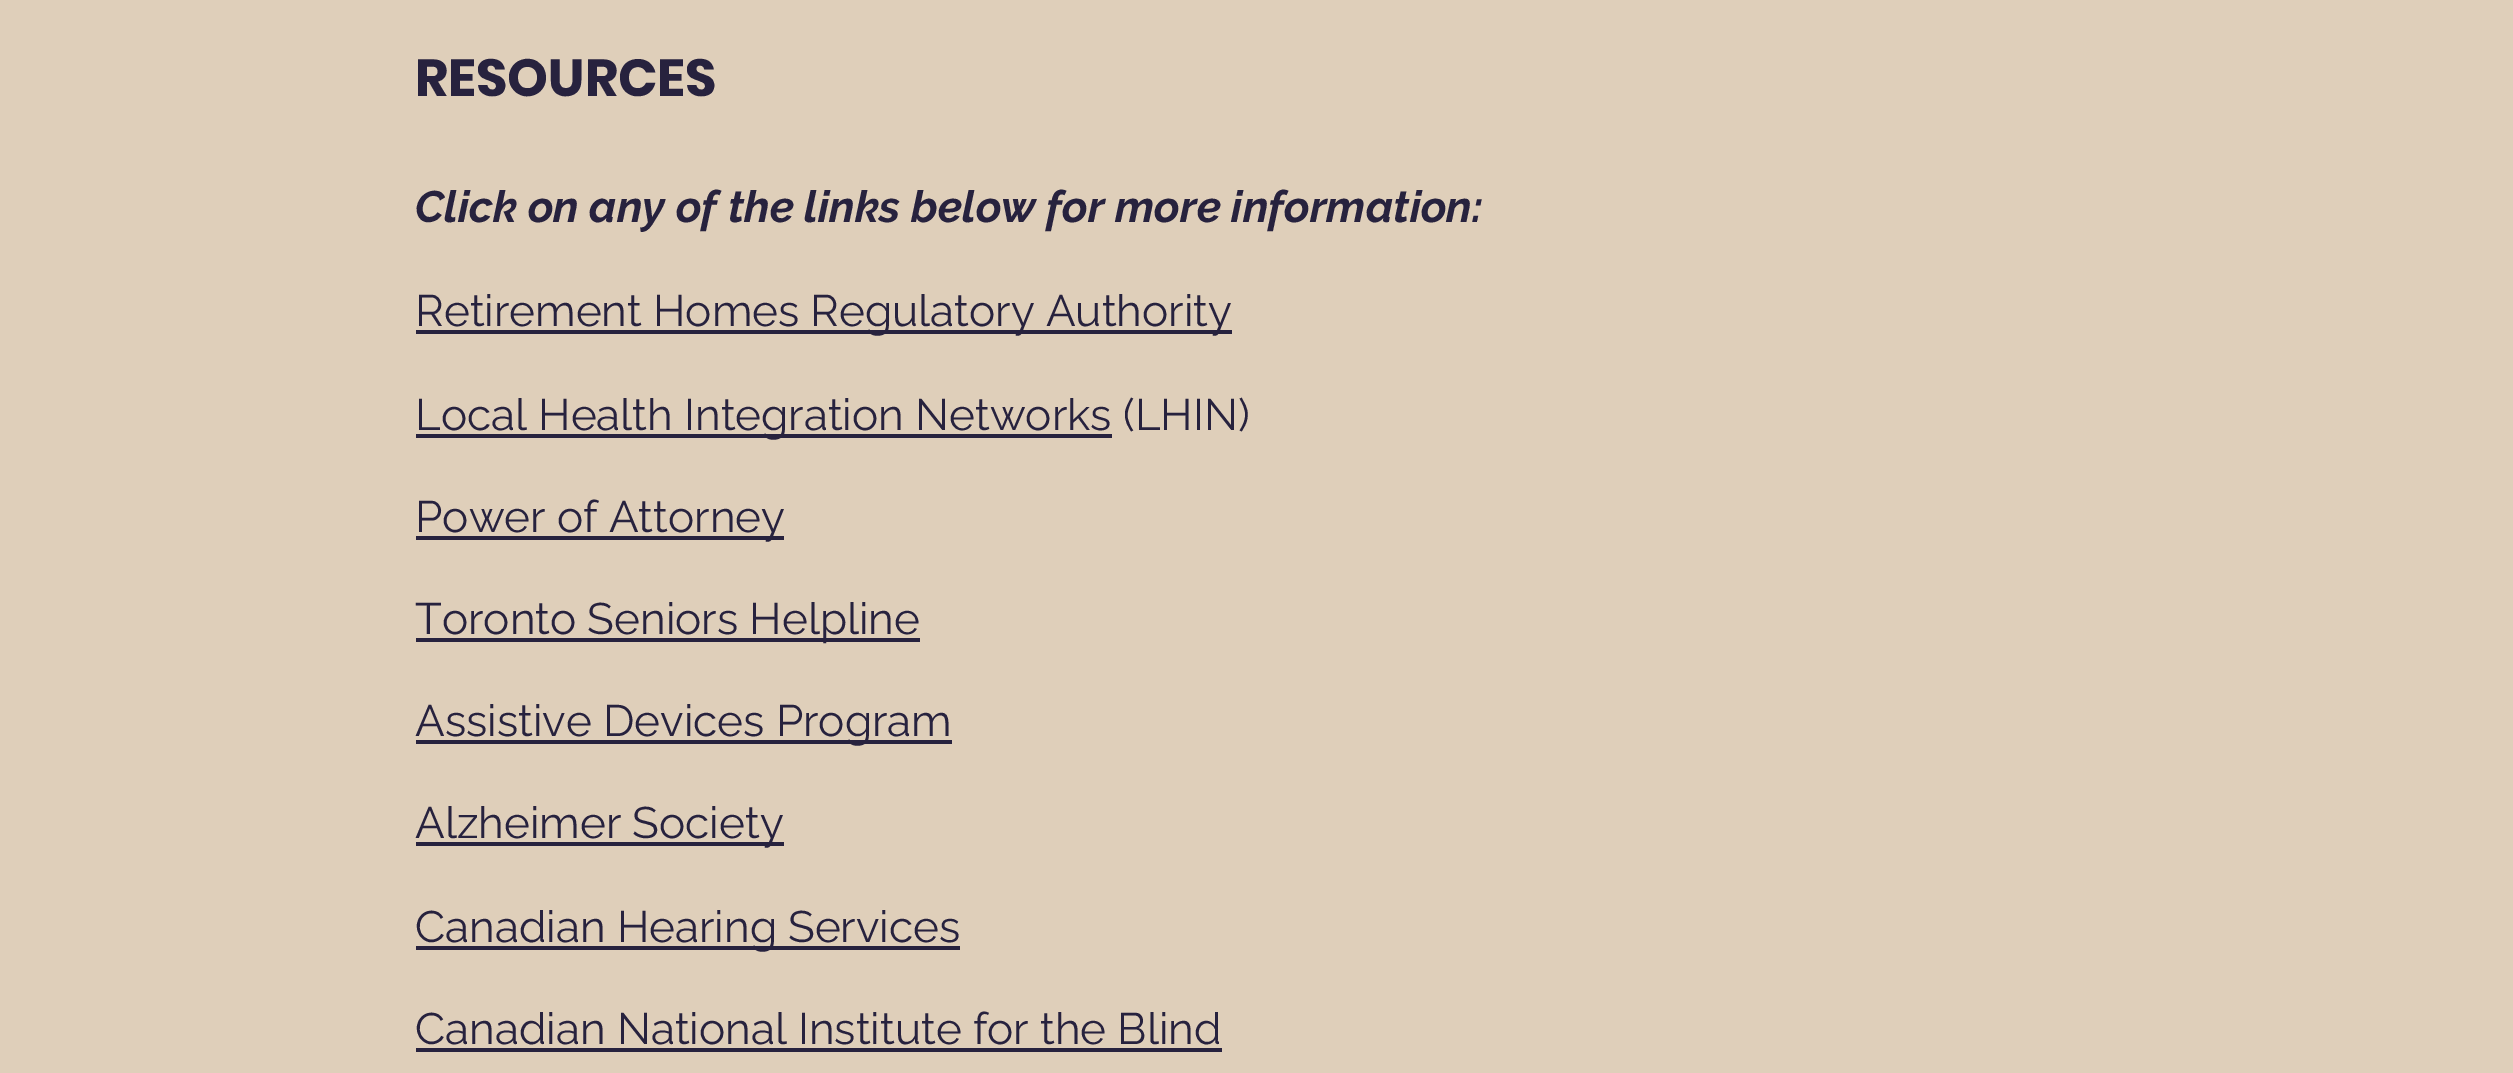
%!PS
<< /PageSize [2513 1073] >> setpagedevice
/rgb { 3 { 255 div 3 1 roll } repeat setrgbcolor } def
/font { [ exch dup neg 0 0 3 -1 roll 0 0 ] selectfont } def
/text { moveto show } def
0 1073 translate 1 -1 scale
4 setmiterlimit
223 207 186 rgb
0 0 2513 1073 rectfill
39 34 62 rgb
416 330 816 4 rectfill
416 434 696 4 rectfill
416 536 368 4 rectfill
416 638 504 4 rectfill
416 740 536 4 rectfill
416 842 368 4 rectfill
416 946 544 4 rectfill
416 1048 806 4 rectfill
/Poppins-Bold 52 font
(RESOURCES) 415 96 text
/Raleway-BoldItalic 44 font
(Click on any of the links below for more information:) 415 222 text
/Raleway-Regular 44 font
(Retirement Homes Regulatory Authority) 415 326 text
(Local Health Integration Networks \(LHIN\)) 415 430 text
(Power of Attorney) 415 532 text
(Toronto Seniors Helpline) 415 634 text
(Assistive Devices Program) 415 736 text
(Alzheimer Society) 415 838 text
(Canadian Hearing Services) 415 942 text
(Canadian National Institute for the Blind) 415 1044 text
showpage
